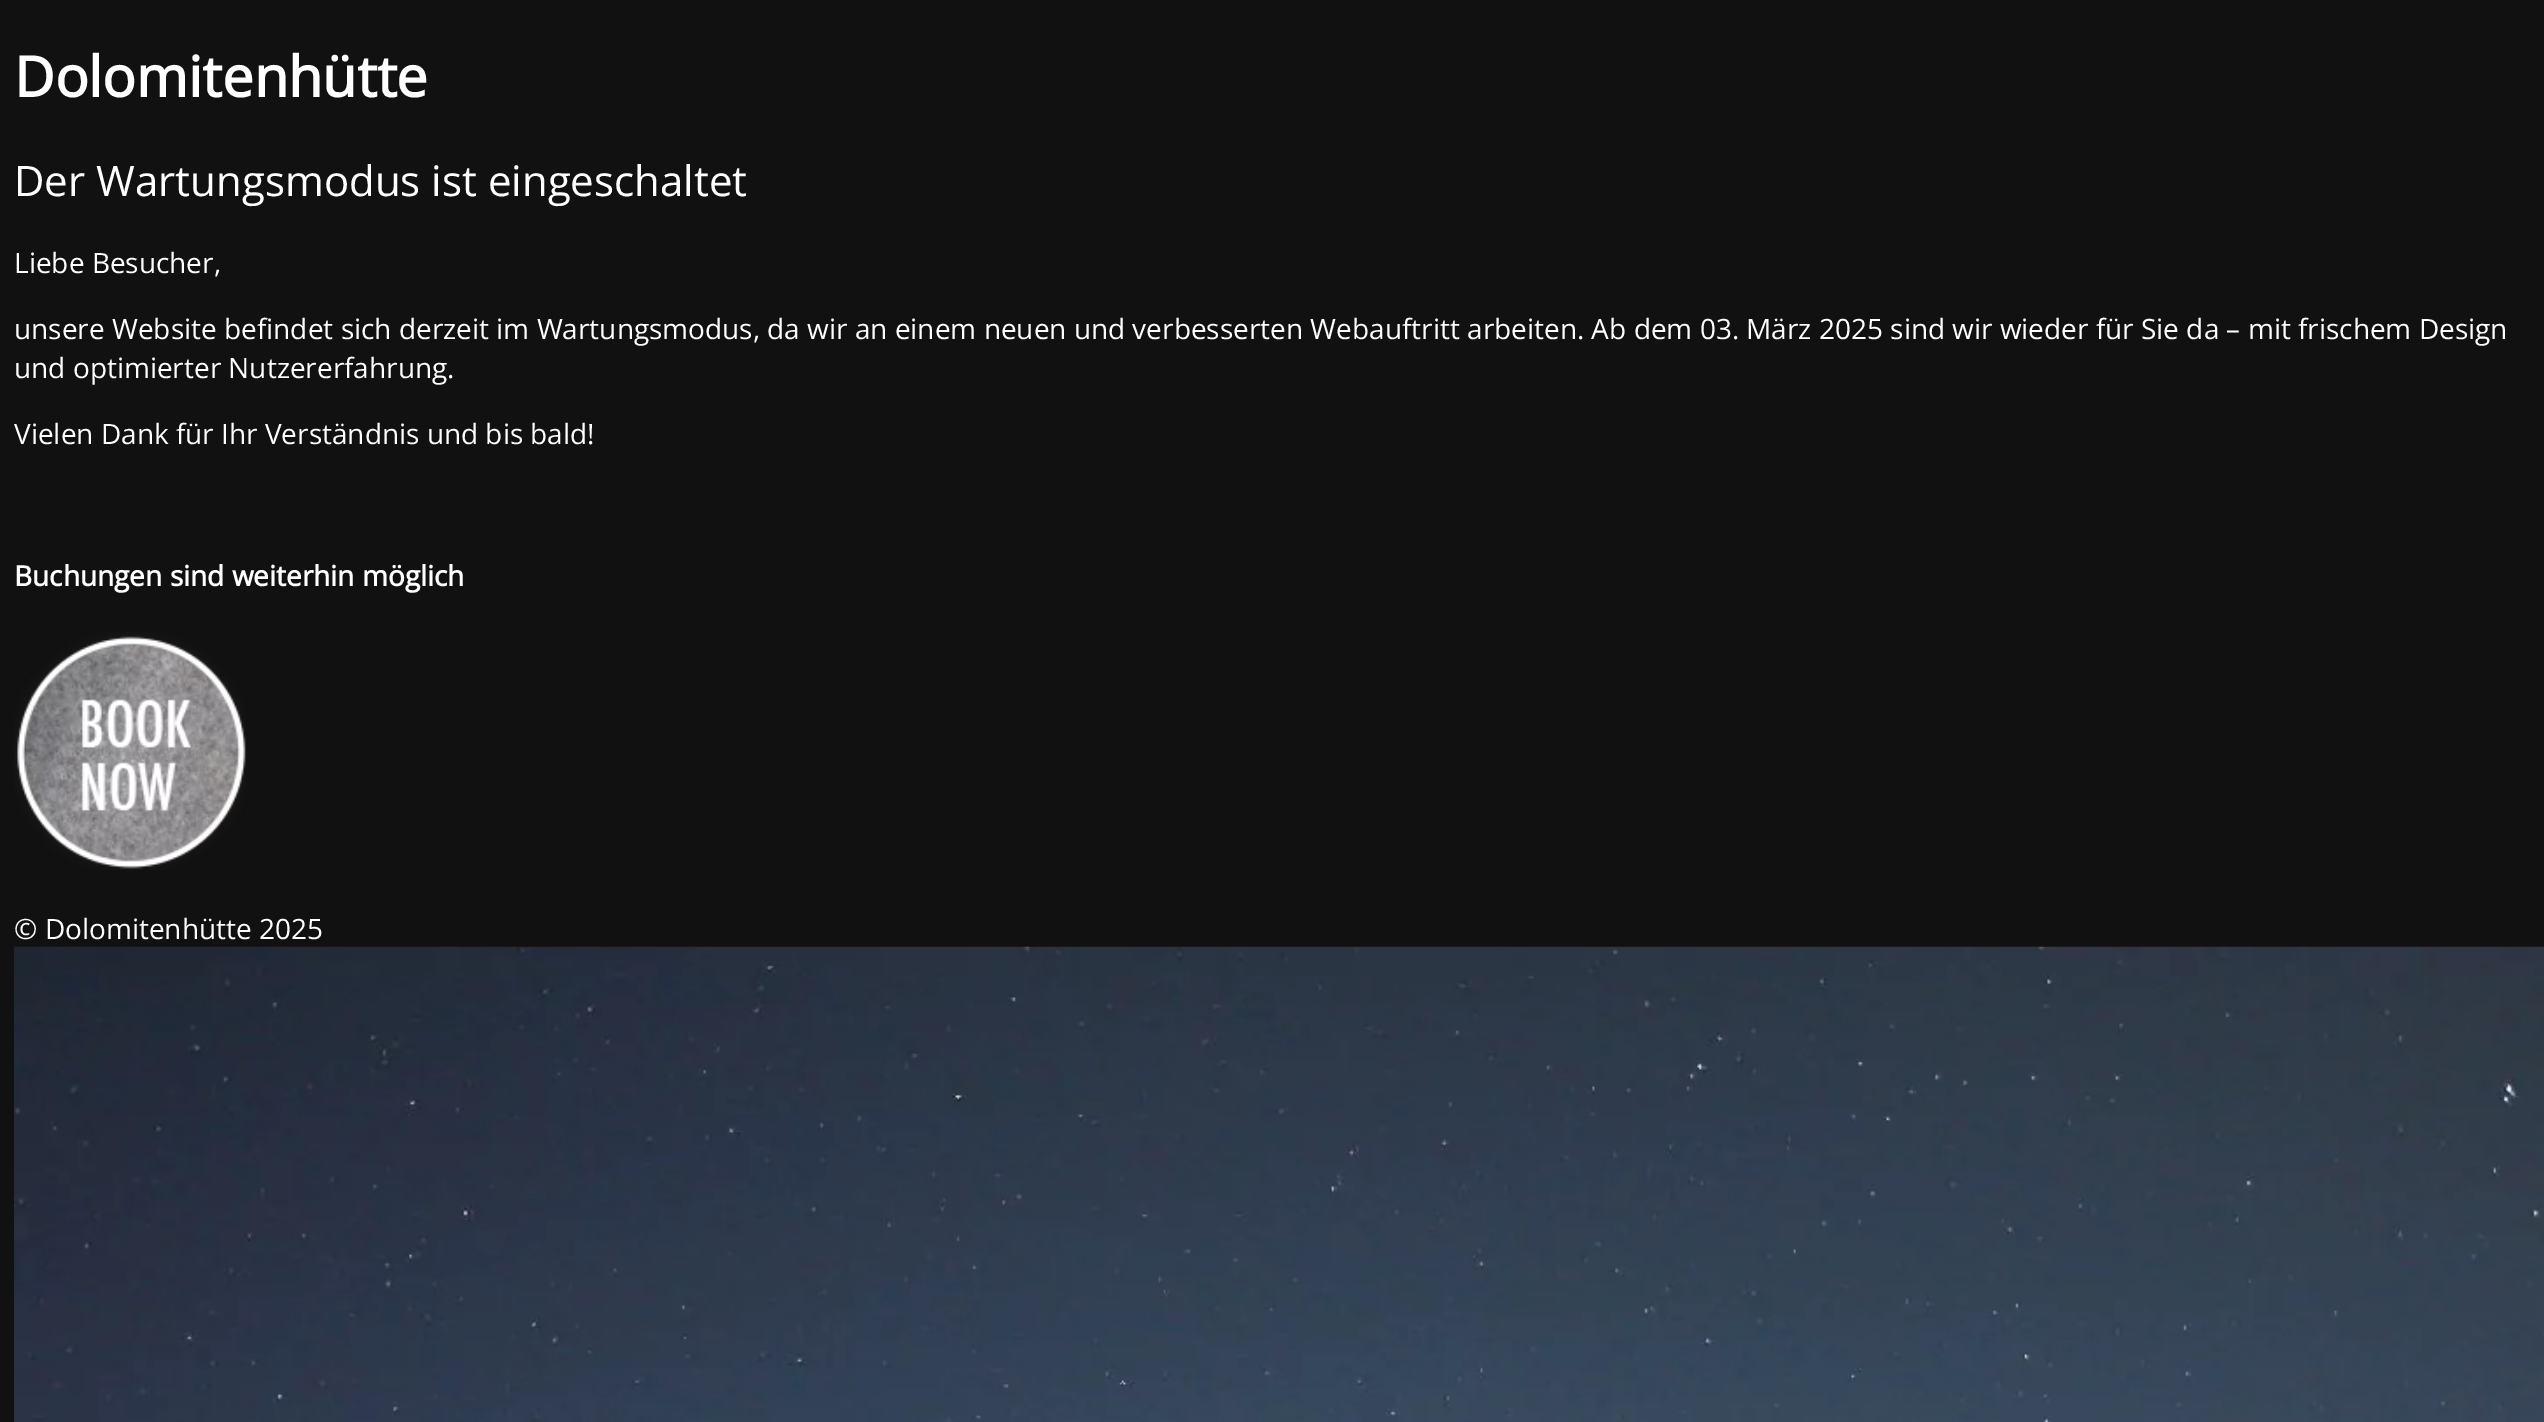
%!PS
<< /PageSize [2544 1422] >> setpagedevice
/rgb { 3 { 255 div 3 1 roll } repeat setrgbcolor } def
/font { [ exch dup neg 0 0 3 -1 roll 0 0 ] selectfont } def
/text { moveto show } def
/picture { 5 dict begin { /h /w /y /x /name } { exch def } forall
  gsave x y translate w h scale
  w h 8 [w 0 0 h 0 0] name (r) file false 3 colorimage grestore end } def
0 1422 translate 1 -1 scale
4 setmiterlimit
17 17 17 rgb
0 0 2544 1422 rectfill
(img_01.rgb) 14 632 232 238 picture
(img_02.rgb) 14 946 2530 476 picture
/OpenSans-Bold 56 font
255 255 255 rgb
(Dolomitenhütte) 14 97 text
/OpenSans-Regular 42 font
(Der Wartungsmodus ist eingeschaltet) 14 196 text
/OpenSans-Regular 28 font
(Liebe Besucher,) 14 273 text
(unsere Website befindet sich derzeit im Wartungsmodus, da wir an einem neuen und verbesserten Webauftritt arbeiten. Ab dem 03. März 2025 sind wir wieder für Sie da – mit frischem Design) 14 339 text
(und optimierter Nutzererfahrung.) 14 378 text
(Vielen Dank für Ihr Verständnis und bis bald!) 14 444 text
/OpenSans-Bold 28 font
(Buchungen sind weiterhin möglich) 14 586 text
/OpenSans-Regular 28 font
(© Dolomitenhütte 2025) 14 939 text
showpage
